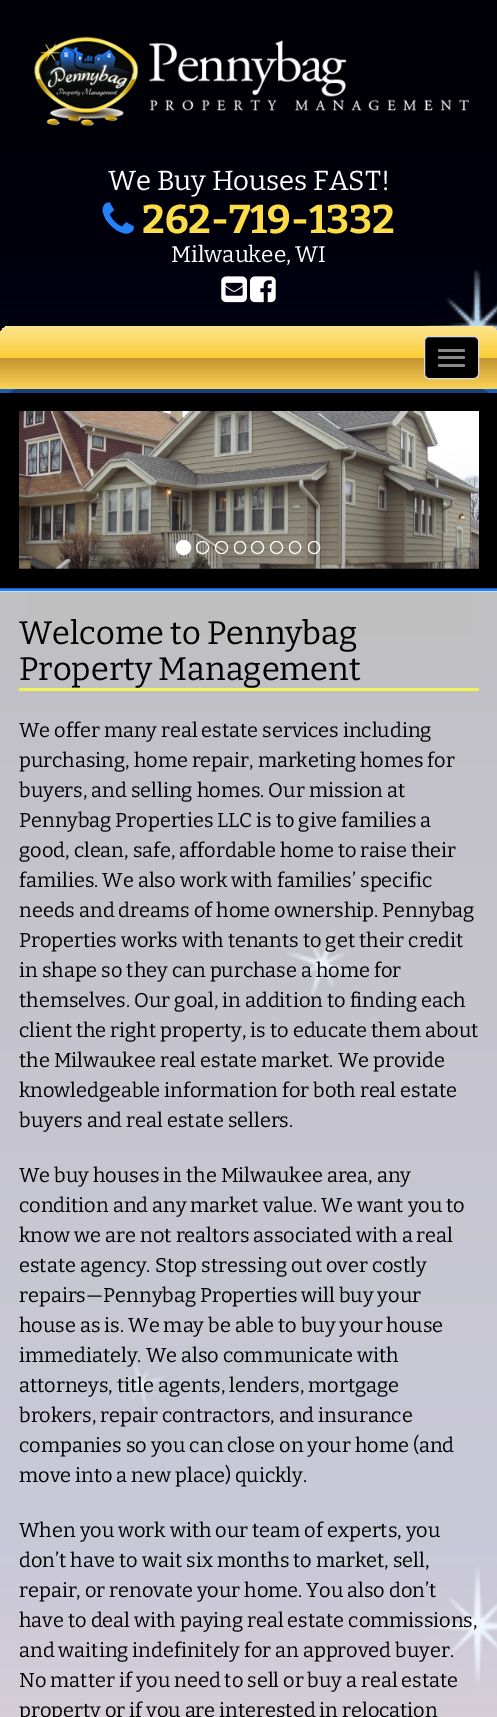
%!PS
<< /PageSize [497 1717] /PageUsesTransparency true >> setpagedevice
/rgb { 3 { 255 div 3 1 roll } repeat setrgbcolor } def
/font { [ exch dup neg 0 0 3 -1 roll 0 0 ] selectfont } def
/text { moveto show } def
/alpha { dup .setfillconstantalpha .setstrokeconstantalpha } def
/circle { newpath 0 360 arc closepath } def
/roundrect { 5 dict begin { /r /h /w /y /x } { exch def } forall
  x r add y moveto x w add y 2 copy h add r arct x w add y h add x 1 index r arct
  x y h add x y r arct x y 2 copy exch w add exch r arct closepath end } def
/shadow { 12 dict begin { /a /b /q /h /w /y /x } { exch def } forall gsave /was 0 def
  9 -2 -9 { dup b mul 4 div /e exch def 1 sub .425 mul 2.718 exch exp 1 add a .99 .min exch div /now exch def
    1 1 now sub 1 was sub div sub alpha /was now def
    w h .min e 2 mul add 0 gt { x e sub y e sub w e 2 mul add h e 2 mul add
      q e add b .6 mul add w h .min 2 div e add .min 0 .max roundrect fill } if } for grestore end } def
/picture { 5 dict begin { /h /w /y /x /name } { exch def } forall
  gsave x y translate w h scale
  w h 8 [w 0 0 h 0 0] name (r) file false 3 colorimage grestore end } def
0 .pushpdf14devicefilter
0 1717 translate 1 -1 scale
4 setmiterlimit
255 255 255 rgb
0 0 497 1717 rectfill
(img_01.rgb) 0 0 497 1717 picture
(img_02.rgb) 34 36 435 90 picture
(img_03.rgb) 102 202 32 32 picture
0 0 0 rgb
0 458 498 202 0 34.5 1 shadow
37 130 255 rgb
0 389 497 4 rectfill
0 0 0 rgb
0 395 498 63 10 34.5 1 shadow
(img_04.rgb) 221 276 26 27 picture
(img_05.rgb) 250 276 26 27 picture
gsave 10 326 moveto 478 0 rlineto 5.5 0 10 4.5 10 10 rcurveto 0 53 rlineto -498 0 rlineto 0 -53 rlineto 0 -5.5 4.5 -10 10 -10 rcurveto closepath clip newpath
<< /ShadingType 2 /ColorSpace /DeviceRGB /Coords [249 326 249 389] /Extend [true true] /Function << /FunctionType 3 /Domain [0 1] /Functions [<< /FunctionType 2 /Domain [0 1] /C0 [0.992 0.898 0.561] /C1 [0.984 0.808 0.216] /N 1 >> << /FunctionType 2 /Domain [0 1] /C0 [0.984 0.808 0.216] /C1 [0.769 0.58 0.188] /N 1 >> << /FunctionType 2 /Domain [0 1] /C0 [0.769 0.58 0.188] /C1 [0.984 0.827 0.337] /N 1 >>] /Bounds [0.5 0.51] /Encode [0 1 0 1 0 1] >> >> shfill grestore
424.5 336.5 54 42 4.5 roundrect gsave fill grestore
221 221 221 rgb
stroke
136 136 136 rgb
438 349 27 3 1.5 roundrect fill
438 356 27 3 1.5 roundrect fill
438 364 27 3 1.5 roundrect fill
37 130 255 rgb
0 588 497 4 rectfill
0 0 0 rgb
19 setlinewidth
9.5 402.5 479 176 rectstroke
(img_06.rgb) 19 411 460 158 picture
255 255 255 rgb
183.5 547.5 7 circle gsave fill grestore
1 setlinewidth
stroke
202.5 547.5 6 circle stroke
221.5 547.5 6 circle stroke
234.5 541.5 11 12 5.5 roundrect stroke
257.5 547.5 6 circle stroke
276.5 547.5 6 circle stroke
289.5 541.5 11 12 5.5 roundrect stroke
308.5 541.5 11 12 5.5 roundrect stroke
0.75 alpha
0 591 497 1126 rectfill
1 alpha
238 244 83 rgb
19 688 460 3 rectfill
/Bitter-Regular 27.5 font
255 255 255 rgb
(We Buy Houses FAST!) 108 190 text
/Bitter-Bold 40 font
253 221 69 rgb
(262-719-1332) 142 233 text
/Bitter-Regular 22.5 font
255 255 255 rgb
(Milwaukee, WI) 171 262 text
/Bitter-Regular 32.5 font
0 0 0 rgb
(Welcome to Pennybag) 19 644 text
(Property Management) 19 680 text
/Bitter-Regular 20 font
(We offer many real estate services including) 19 737 text
(purchasing, home repair, marketing homes for) 19 767 text
(buyers, and selling homes. Our mission at) 19 797 text
(Pennybag Properties LLC is to give families a) 19 827 text
(good, clean, safe, affordable home to raise their) 19 857 text
(families. We also work with families’ specific) 19 887 text
(needs and dreams of home ownership. Pennybag) 19 917 text
(Properties works with tenants to get their credit) 19 947 text
(in shape so they can purchase a home for) 19 977 text
(themselves. Our goal, in addition to finding each) 19 1007 text
(client the right property, is to educate them about) 19 1037 text
(the Milwaukee real estate market. We provide) 19 1067 text
(knowledgeable information for both real estate) 19 1097 text
(buyers and real estate sellers.) 19 1127 text
(We buy houses in the Milwaukee area, any) 19 1182 text
(condition and any market value. We want you to) 19 1212 text
(know we are not realtors associated with a real) 19 1242 text
(estate agency. Stop stressing out over costly) 19 1272 text
(repairs—Pennybag Properties will buy your) 19 1302 text
(house as is. We may be able to buy your house) 19 1332 text
(immediately. We also communicate with) 19 1362 text
(attorneys, title agents, lenders, mortgage) 19 1392 text
(brokers, repair contractors, and insurance) 19 1422 text
(companies so you can close on your home \(and) 19 1452 text
(move into a new place\) quickly.) 19 1482 text
(When you work with our team of experts, you) 19 1537 text
(don’t have to wait six months to market, sell,) 19 1567 text
(repair, or renovate your home. You also don’t) 19 1597 text
(have to deal with paying real estate commissions,) 19 1627 text
(and waiting indefinitely for an approved buyer.) 19 1657 text
(No matter if you need to sell or buy a real estate) 19 1687 text
(property or if you are interested in relocation) 19 1717 text
.poppdf14devicefilter showpage
